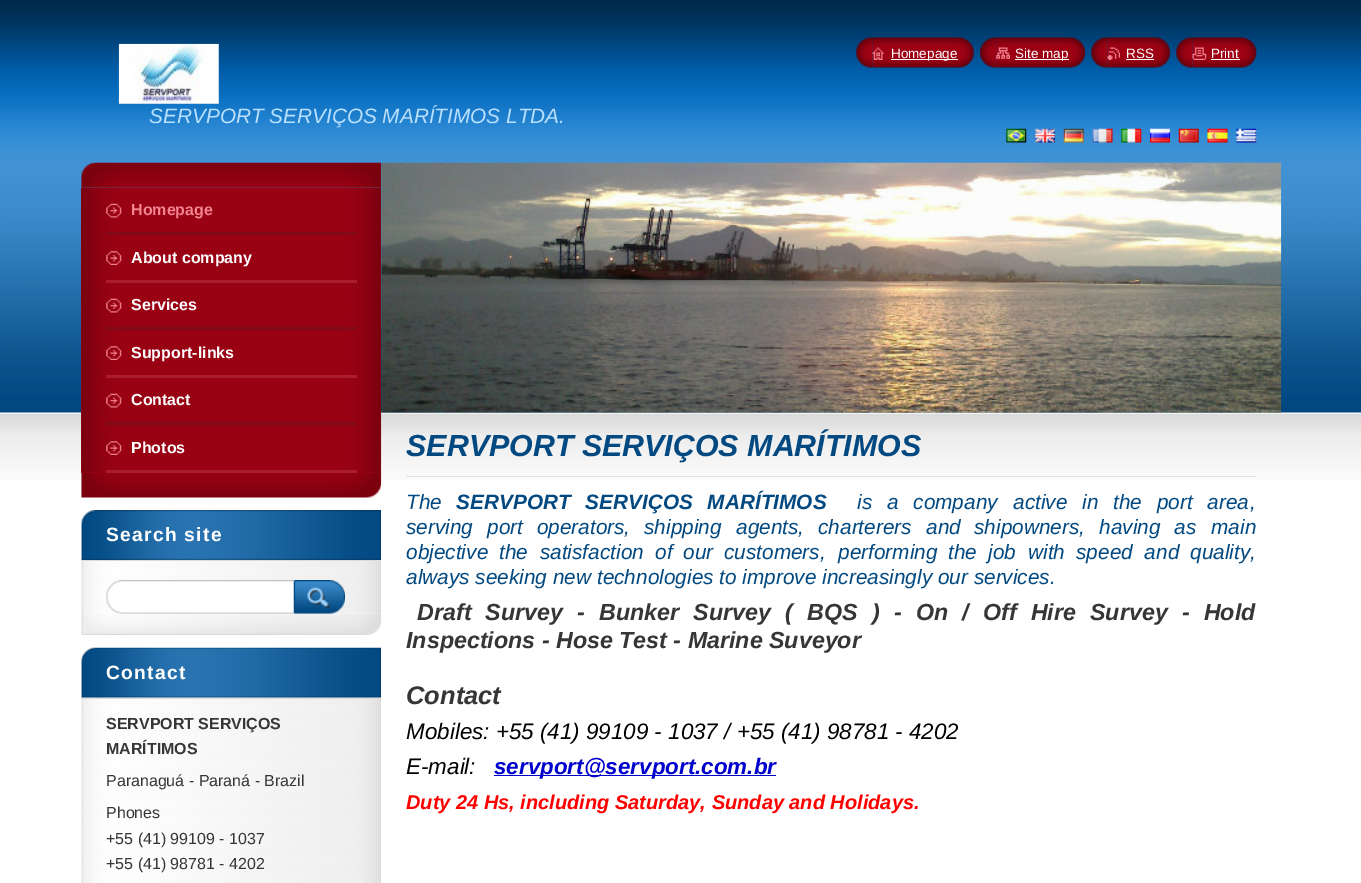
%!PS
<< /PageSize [1361 883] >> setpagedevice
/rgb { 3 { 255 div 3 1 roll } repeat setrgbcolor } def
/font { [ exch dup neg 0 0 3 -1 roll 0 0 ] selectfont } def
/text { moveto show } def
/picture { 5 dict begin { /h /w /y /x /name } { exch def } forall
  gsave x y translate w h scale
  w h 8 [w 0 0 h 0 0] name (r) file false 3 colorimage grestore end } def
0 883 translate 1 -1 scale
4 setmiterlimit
255 255 255 rgb
0 0 1361 883 rectfill
(img_01.rgb) 0 0 1361 480 picture
(img_02.rgb) 856 37 17 31 picture
(img_03.rgb) 872 37 102 31 picture
(img_04.rgb) 872 47 12 13 picture
891 59 67 1 rectfill
(img_05.rgb) 980 37 17 31 picture
(img_06.rgb) 996 37 89 31 picture
(img_07.rgb) 996 47 14 12 picture
1015 59 54 1 rectfill
(img_02.rgb) 1091 37 17 31 picture
(img_08.rgb) 1107 37 63 31 picture
(img_09.rgb) 1107 47 13 13 picture
1126 59 28 1 rectfill
(img_02.rgb) 1176 37 17 31 picture
(img_10.rgb) 1192 37 65 31 picture
(img_11.rgb) 1192 47 15 13 picture
1211 59 29 1 rectfill
(img_12.rgb) 118 43 101 61 picture
(img_13.rgb) 1006 128 21 15 picture
(img_14.rgb) 1035 128 20 15 picture
(img_15.rgb) 1063 128 21 15 picture
(img_16.rgb) 1092 128 21 15 picture
(img_17.rgb) 1121 128 21 15 picture
(img_18.rgb) 1150 128 20 15 picture
(img_19.rgb) 1178 128 21 15 picture
(img_20.rgb) 1207 128 21 15 picture
(img_21.rgb) 1236 128 21 15 picture
(img_22.rgb) 81 162 301 26 picture
(img_23.rgb) 81 472 301 26 picture
157 2 20 rgb
81 188 300 285 rectfill
(img_24.rgb) 81 187 301 286 picture
129 10 25 rgb
106 232 251 3 rectfill
(img_25.rgb) 106 203 16 15 picture
170 29 46 rgb
106 280 251 3 rectfill
(img_26.rgb) 106 251 16 14 picture
129 10 25 rgb
106 327 251 3 rectfill
(img_27.rgb) 106 298 16 15 picture
170 29 46 rgb
106 375 251 3 rectfill
(img_28.rgb) 106 346 16 14 picture
129 10 25 rgb
106 422 251 3 rectfill
(img_29.rgb) 106 393 16 15 picture
170 29 46 rgb
106 470 251 3 rectfill
(img_30.rgb) 106 441 16 14 picture
(img_31.rgb) 81 613 300 22 picture
(img_32.rgb) 81 510 300 50 picture
(img_33.rgb) 81 561 300 53 picture
219 219 219 rgb
81 560 300 1 rectfill
(img_34.rgb) 106 580 189 34 picture
(img_35.rgb) 293 580 52 34 picture
(img_37.rgb) 81 697 300 186 picture
(img_36.rgb) 81 647 300 51 picture
81 698 300 1 rectfill
(img_38.rgb) 381 162 901 251 picture
225 225 225 rgb
406 476 850 1 rectfill
0 0 205 rgb
494 775 282 1 rectfill
/LiberationSans-Regular 13.5 font
255 255 255 rgb
(Homepage) 891 58 text
(Site map) 1015 58 text
(RSS) 1126 58 text
(Print) 1211 58 text
/LiberationSans-Italic 20.8 font
186 224 255 rgb
(SERVPORT SERVIÇOS MARÍTIMOS LTDA.) 149 123 text
/LiberationSans-Bold 16 font
243 132 145 rgb
(Homepage) 131 215 text
255 255 255 rgb
(About company) 131 263 text
(Services) 131 310 text
(Support-links) 131 358 text
(Contact) 131 405 text
(Photos) 131 453 text
/LiberationSans-Bold 19.25 font
106 541 moveto 1.25 0 (Search site) ashow
106 679 moveto 1.25 0 (Contact) ashow
/LiberationSans-Bold 16 font
54 54 54 rgb
(SERVPORT SERVIÇOS) 106 729 text
(MARÍTIMOS) 106 754 text
/LiberationSans-Regular 16 font
(Paranaguá - Paraná - Brazil) 106 786 text
(Phones) 106 818 text
(+55 \(41\) 99109 - 1037) 106 844 text
(+55 \(41\) 98781 - 4202) 106 869 text
/LiberationSans-BoldItalic 30.4 font
2 73 129 rgb
(SERVPORT SERVIÇOS MARÍTIMOS) 406 456 text
/LiberationSans-Italic 20.8 font
(The) 406 509 text
/LiberationSans-BoldItalic 20.8 font
456 509 moveto 9 0 32 (SERVPORT SERVIÇOS MARÍTIMOS) widthshow
/LiberationSans-Italic 20.8 font
857 509 moveto 9 0 32 (is a company) widthshow
(active) 1013 509 text
1082 509 moveto 9 0 32 (in the port area) widthshow
(,) 1250 509 text
(serving) 406 534 text
487 534 moveto 8 0 32 (port operators) widthshow
(,) 624 534 text
(shipping) 644 534 text
(agents,) 736 534 text
(charterers) 818 534 text
(and) 926 534 text
(shipowners,) 974 534 text
1099 534 moveto 8 0 32 (having as) widthshow
(main) 1211 534 text
(objective) 406 559 text
499 559 moveto 6 0 32 (the satisfaction of) widthshow
683 559 moveto 5 0 32 (our customers) widthshow
(,) 820 559 text
(performing) 838 559 text
(the) 948 559 text
(job) 988 559 text
(with) 1028 559 text
1076 559 moveto 6 0 32 (speed and) widthshow
(quality,) 1190 559 text
(always seeking new technologies to improve increasingly our services.) 406 584 text
/LiberationSans-BoldItalic 23.25 font
54 54 54 rgb
417 620 moveto 7.75 0 32 (Draft Survey - Bunker Survey \( BQS \) - On / Off Hire Survey - Hold) widthshow
(Inspections - Hose Test - Marine Suveyor) 406 648 text
/LiberationSans-BoldItalic 25.5 font
(Contact) 406 704 text
/LiberationSans-Italic 22.4 font
0 0 0 rgb
(Mobiles: +55 \(41\) 99109 - 1037 / +55 \(41\) 98781 - 4202) 406 739 text
(E-mail:) 406 774 text
/LiberationSans-BoldItalic 22.4 font
0 0 205 rgb
(servport@servport.com.br) 494 774 text
/LiberationSans-BoldItalic 20 font
255 0 0 rgb
(Duty 24 Hs, including Saturday, Sunday and Holidays.) 406 809 text
showpage
